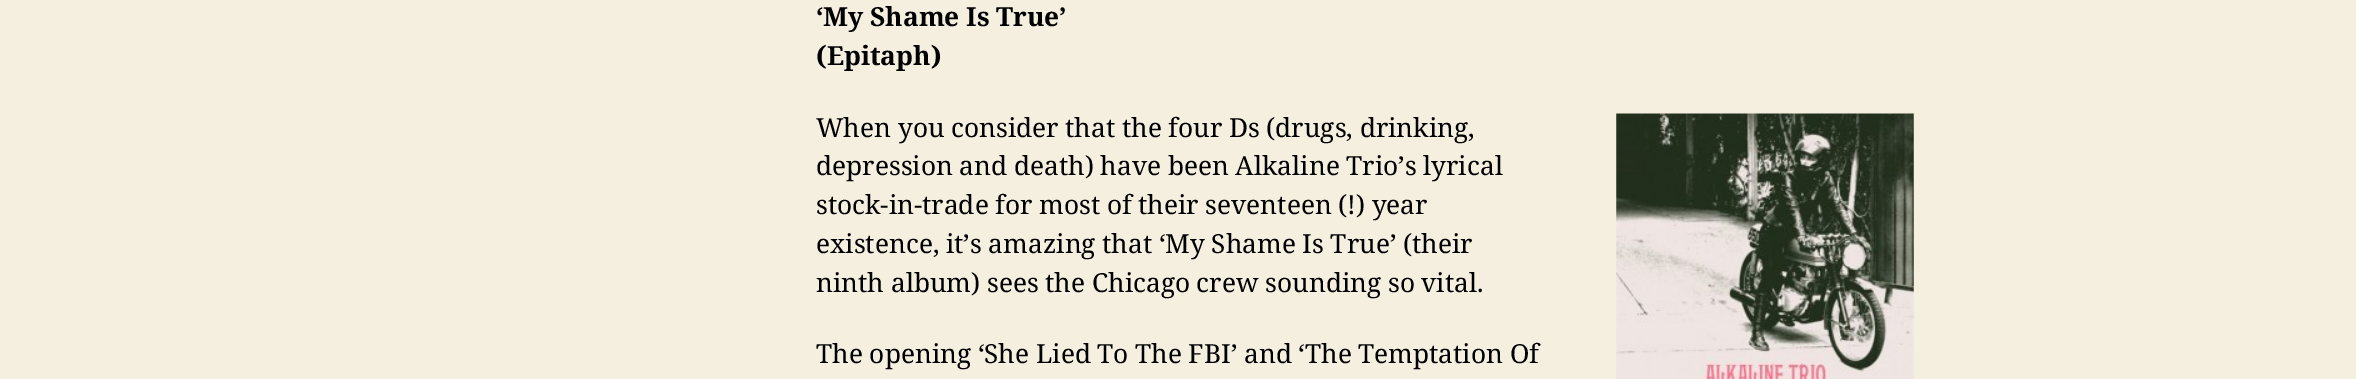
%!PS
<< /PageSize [2356 379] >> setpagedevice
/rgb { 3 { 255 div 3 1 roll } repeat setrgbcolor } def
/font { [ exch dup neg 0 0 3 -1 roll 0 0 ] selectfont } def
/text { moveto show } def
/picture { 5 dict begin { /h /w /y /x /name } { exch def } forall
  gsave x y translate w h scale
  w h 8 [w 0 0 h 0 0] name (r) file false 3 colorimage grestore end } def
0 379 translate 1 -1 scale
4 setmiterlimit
245 239 224 rgb
0 0 2356 379 rectfill
(img_01.rgb) 1616 113 298 266 picture
/NotoSerif-Bold 26.25 font
0 0 0 rgb
816 26 moveto -0.25 0 32 (‘My Shame Is True’) widthshow
(\(Epitaph\)) 816 65 text
/NotoSerif-Regular 26.25 font
816 137 moveto -0.25 0 32 (When you consider that the four Ds \(drugs, drinking,) widthshow
816 175 moveto -0.25 0 32 (depression and death\) have been Alkaline Trio’s lyrical) widthshow
816 214 moveto -0.25 0 32 (stock-in-trade for most of their seventeen \(!\) year) widthshow
816 253 moveto -0.25 0 32 (existence, it’s amazing that ‘My Shame Is True’ \(their) widthshow
816 292 moveto -0.25 0 32 (ninth album\) sees the Chicago crew sounding so vital.) widthshow
816 363 moveto -0.25 0 32 (The opening ‘She Lied To The FBI’ and ‘The Temptation Of) widthshow
showpage
